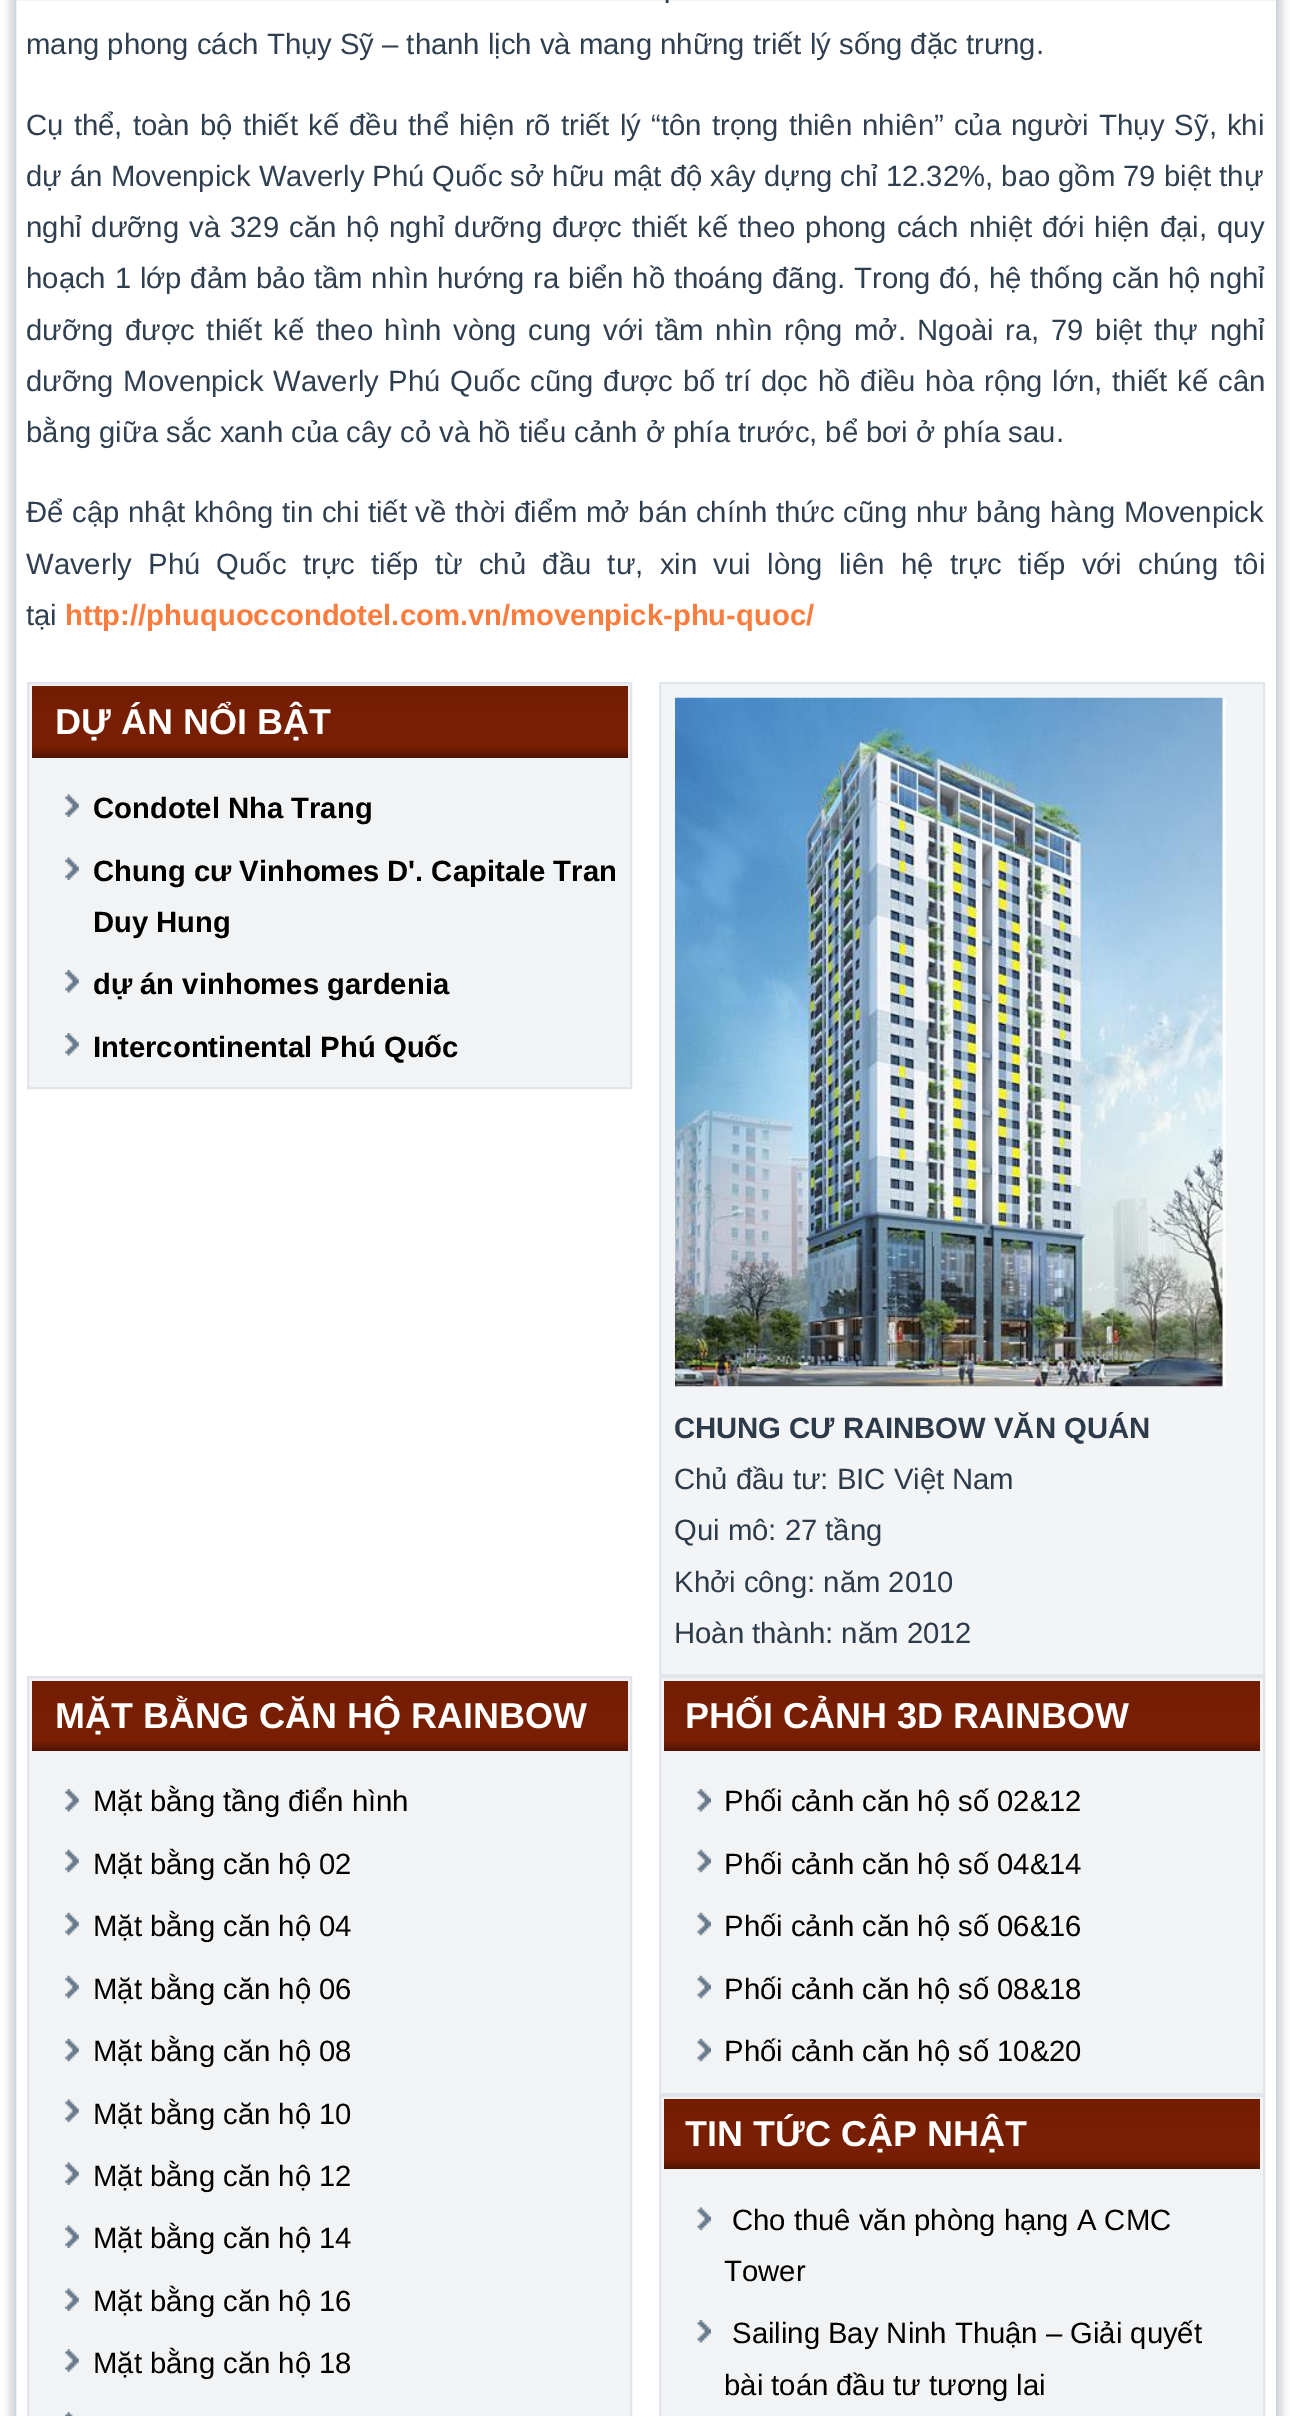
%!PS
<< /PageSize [1290 2416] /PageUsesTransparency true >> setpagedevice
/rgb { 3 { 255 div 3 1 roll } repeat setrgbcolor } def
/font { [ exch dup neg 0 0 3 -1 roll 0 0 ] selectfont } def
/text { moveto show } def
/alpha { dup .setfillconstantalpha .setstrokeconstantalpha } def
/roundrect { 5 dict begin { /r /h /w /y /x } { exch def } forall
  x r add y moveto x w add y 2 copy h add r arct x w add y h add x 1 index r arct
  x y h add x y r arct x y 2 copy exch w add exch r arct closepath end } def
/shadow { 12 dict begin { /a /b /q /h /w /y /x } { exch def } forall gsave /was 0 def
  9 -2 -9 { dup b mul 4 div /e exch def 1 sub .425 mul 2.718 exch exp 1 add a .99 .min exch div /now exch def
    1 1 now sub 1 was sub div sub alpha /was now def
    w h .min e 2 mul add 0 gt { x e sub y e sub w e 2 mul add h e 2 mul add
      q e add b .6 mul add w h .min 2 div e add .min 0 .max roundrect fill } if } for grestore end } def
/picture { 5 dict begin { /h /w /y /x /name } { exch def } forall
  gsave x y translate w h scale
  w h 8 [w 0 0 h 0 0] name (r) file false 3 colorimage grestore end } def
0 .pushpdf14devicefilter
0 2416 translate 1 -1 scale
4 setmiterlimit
255 255 255 rgb
0 0 1290 2416 rectfill
gsave
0 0 moveto 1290 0 rlineto 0 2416 rlineto -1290 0 rlineto closepath 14 -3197 moveto 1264 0 rlineto 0 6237 rlineto -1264 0 rlineto closepath eoclip newpath
0 0 0 rgb
9 -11 1274 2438 0 3.5 0.15 shadow
grestore
204 214 224 rgb
2 setlinewidth
15 -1 1262 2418 rectstroke
242 243 245 rgb
28 683 moveto 603 0 rlineto 0 405 rlineto -603 0 rlineto closepath gsave fill grestore
225 229 235 rgb
stroke
gsave 32 686 moveto 596 0 rlineto 0 72 rlineto -596 0 rlineto closepath clip newpath
<< /ShadingType 2 /ColorSpace /DeviceRGB /Coords [330 686 330 758] /Extend [true true] /Function << /FunctionType 3 /Domain [0 1] /Functions [<< /FunctionType 2 /Domain [0 1] /C0 [0.447 0.114 0.012] /C1 [0.467 0.118 0.012] /N 1 >> << /FunctionType 2 /Domain [0 1] /C0 [0.467 0.118 0.012] /C1 [0.467 0.118 0.012] /N 1 >> << /FunctionType 2 /Domain [0 1] /C0 [0.467 0.118 0.012] /C1 [0.314 0.078 0.008] /N 1 >>] /Bounds [0.4 0.85] /Encode [0 1 0 1 0 1] >> >> shfill grestore
(img_01.rgb) 65 794 14 23 picture
(img_01.rgb) 65 857 14 23 picture
(img_02.rgb) 65 970 14 23 picture
(img_02.rgb) 65 1033 14 23 picture
242 244 245 rgb
660 683 moveto 604 0 rlineto 0 992 rlineto -604 0 rlineto closepath gsave fill grestore
225 230 235 rgb
stroke
(img_03.rgb) 675 697 551 690 picture
242 243 245 rgb
28 1677 moveto 603 0 rlineto 0 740 rlineto -603 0 rlineto closepath gsave fill grestore
225 229 235 rgb
stroke
gsave 32 1681 moveto 596 0 rlineto 0 70 rlineto -596 0 rlineto closepath clip newpath
<< /ShadingType 2 /ColorSpace /DeviceRGB /Coords [330 1681 330 1751] /Extend [true true] /Function << /FunctionType 3 /Domain [0 1] /Functions [<< /FunctionType 2 /Domain [0 1] /C0 [0.447 0.114 0.012] /C1 [0.467 0.118 0.012] /N 1 >> << /FunctionType 2 /Domain [0 1] /C0 [0.467 0.118 0.012] /C1 [0.467 0.118 0.012] /N 1 >> << /FunctionType 2 /Domain [0 1] /C0 [0.467 0.118 0.012] /C1 [0.314 0.078 0.008] /N 1 >>] /Bounds [0.4 0.85] /Encode [0 1 0 1 0 1] >> >> shfill grestore
(img_02.rgb) 65 1789 14 23 picture
(img_04.rgb) 65 1849 14 24 picture
(img_04.rgb) 65 1912 14 24 picture
(img_04.rgb) 65 1975 14 24 picture
(img_04.rgb) 65 2038 14 24 picture
(img_01.rgb) 65 2099 14 23 picture
(img_01.rgb) 65 2162 14 23 picture
(img_01.rgb) 65 2225 14 23 picture
(img_01.rgb) 65 2288 14 23 picture
(img_05.rgb) 65 2349 14 23 picture
(img_06.rgb) 65 2412 8 4 picture
242 243 245 rgb
660 1677 moveto 604 0 rlineto 0 417 rlineto -604 0 rlineto closepath gsave fill grestore
225 229 235 rgb
stroke
gsave 664 1681 moveto 596 0 rlineto 0 70 rlineto -596 0 rlineto closepath clip newpath
<< /ShadingType 2 /ColorSpace /DeviceRGB /Coords [962 1681 962 1751] /Extend [true true] /Function << /FunctionType 3 /Domain [0 1] /Functions [<< /FunctionType 2 /Domain [0 1] /C0 [0.447 0.114 0.012] /C1 [0.467 0.118 0.012] /N 1 >> << /FunctionType 2 /Domain [0 1] /C0 [0.467 0.118 0.012] /C1 [0.467 0.118 0.012] /N 1 >> << /FunctionType 2 /Domain [0 1] /C0 [0.467 0.118 0.012] /C1 [0.314 0.078 0.008] /N 1 >>] /Bounds [0.4 0.85] /Encode [0 1 0 1 0 1] >> >> shfill grestore
(img_07.rgb) 697 1789 14 23 picture
(img_08.rgb) 697 1849 14 24 picture
(img_08.rgb) 697 1912 14 24 picture
(img_08.rgb) 697 1975 14 24 picture
(img_08.rgb) 697 2038 14 24 picture
242 243 245 rgb
660 2096 moveto 604 0 rlineto 0 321 rlineto -604 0 rlineto closepath gsave fill grestore
225 229 235 rgb
stroke
gsave 664 2099 moveto 596 0 rlineto 0 70 rlineto -596 0 rlineto closepath clip newpath
<< /ShadingType 2 /ColorSpace /DeviceRGB /Coords [962 2099 962 2169] /Extend [true true] /Function << /FunctionType 3 /Domain [0 1] /Functions [<< /FunctionType 2 /Domain [0 1] /C0 [0.447 0.114 0.012] /C1 [0.467 0.118 0.012] /N 1 >> << /FunctionType 2 /Domain [0 1] /C0 [0.467 0.118 0.012] /C1 [0.467 0.118 0.012] /N 1 >> << /FunctionType 2 /Domain [0 1] /C0 [0.467 0.118 0.012] /C1 [0.314 0.078 0.008] /N 1 >>] /Bounds [0.4 0.85] /Encode [0 1 0 1 0 1] >> >> shfill grestore
(img_09.rgb) 697 2207 14 23 picture
(img_07.rgb) 697 2320 14 23 picture
/LiberationSans-Regular 29.25 font
48 63 80 rgb
663 3 moveto 4 0 32 (.) widthshow
(mang phong cách Thụy Sỹ – thanh lịch và mang những triết lý sống đặc trưng.) 26 54 text
26 135 moveto 2.1 0 32 (Cụ thể, toàn bộ thiết kế đều thể hiện rõ triết lý “tôn trọng thiên nhiên” của người Thụy Sỹ, khi) widthshow
(dự án Movenpick Waverly Phú Quốc sở hữu mật độ xây dựng chỉ 12.32%, bao gồm 79 biệt thự) 26 186 text
26 237 moveto 2 0 32 (nghỉ dưỡng và 329 căn hộ nghỉ dưỡng được thiết kế theo phong cách nhiệt đới hiện đại, quy) widthshow
26 288 moveto 0.7 0 32 (hoạch 1 lớp đảm bảo tầm nhìn hướng ra biển hồ thoáng đãng. Trong đó, hệ thống căn hộ nghỉ) widthshow
26 340 moveto 3.5 0 32 (dưỡng được thiết kế theo hình vòng cung với tầm nhìn rộng mở. Ngoài ra, 79 biệt thự nghỉ) widthshow
26 391 moveto 1.7 0 32 (dưỡng Movenpick Waverly Phú Quốc cũng được bố trí dọc hồ điều hòa rộng lớn, thiết kế cân) widthshow
(bằng giữa sắc xanh của cây cỏ và hồ tiểu cảnh ở phía trước, bể bơi ở phía sau.) 26 442 text
26 522 moveto 0.6 0 32 (Để cập nhật không tin chi tiết về thời điểm mở bán chính thức cũng như bảng hàng Movenpick) widthshow
26 574 moveto 8.25 0 32 (Waverly Phú Quốc trực tiếp từ chủ đầu tư, xin vui lòng liên hệ trực tiếp với chúng tôi) widthshow
(tại) 26 625 text
/LiberationSans-Bold 29.25 font
251 124 60 rgb
(http://phuquoccondotel.com.vn/movenpick-phu-quoc/) 65 625 text
/LiberationSans-Bold 36 font
255 255 255 rgb
(DỰ ÁN NỔI BẬT) 55 734 text
/LiberationSans-Bold 29.25 font
0 0 0 rgb
(Condotel Nha Trang) 93 818 text
(Chung cư Vinhomes D'. Capitale Tran) 93 881 text
(Duy Hung) 93 932 text
(dự án vinhomes gardenia) 93 994 text
(Intercontinental Phú Quốc) 93 1057 text
44 58 73 rgb
(CHUNG CƯ RAINBOW VĂN QUÁN) 674 1438 text
/LiberationSans-Regular 29.25 font
(Chủ đầu tư: BIC Việt Nam) 674 1489 text
(Qui mô: 27 tầng) 674 1540 text
(Khởi công: năm 2010) 674 1592 text
(Hoàn thành: năm 2012) 674 1643 text
/LiberationSans-Bold 36 font
255 255 255 rgb
(MẶT BẰNG CĂN HỘ RAINBOW) 55 1728 text
/LiberationSans-Regular 29.25 font
0 0 0 rgb
(Mặt bằng tầng điển hình) 93 1811 text
(Mặt bằng căn hộ 02) 93 1874 text
(Mặt bằng căn hộ 04) 93 1936 text
(Mặt bằng căn hộ 06) 93 1999 text
(Mặt bằng căn hộ 08) 93 2061 text
(Mặt bằng căn hộ 10) 93 2124 text
(Mặt bằng căn hộ 12) 93 2186 text
(Mặt bằng căn hộ 14) 93 2248 text
(Mặt bằng căn hộ 16) 93 2311 text
(Mặt bằng căn hộ 18) 93 2373 text
/LiberationSans-Bold 36 font
255 255 255 rgb
(PHỐI CẢNH 3D RAINBOW) 685 1728 text
/LiberationSans-Regular 29.25 font
0 0 0 rgb
(Phối cảnh căn hộ số 02&12) 724 1811 text
(Phối cảnh căn hộ số 04&14) 724 1874 text
(Phối cảnh căn hộ số 06&16) 724 1936 text
(Phối cảnh căn hộ số 08&18) 724 1999 text
(Phối cảnh căn hộ số 10&20) 724 2061 text
/LiberationSans-Bold 36 font
255 255 255 rgb
(TIN TỨC CẬP NHẬT) 685 2146 text
/LiberationSans-Regular 29.25 font
0 0 0 rgb
(Cho thuê văn phòng hạng A CMC) 732 2230 text
(Tower) 724 2281 text
(Sailing Bay Ninh Thuận – Giải quyết) 732 2343 text
(bài toán đầu tư tương lai) 724 2395 text
.poppdf14devicefilter showpage
